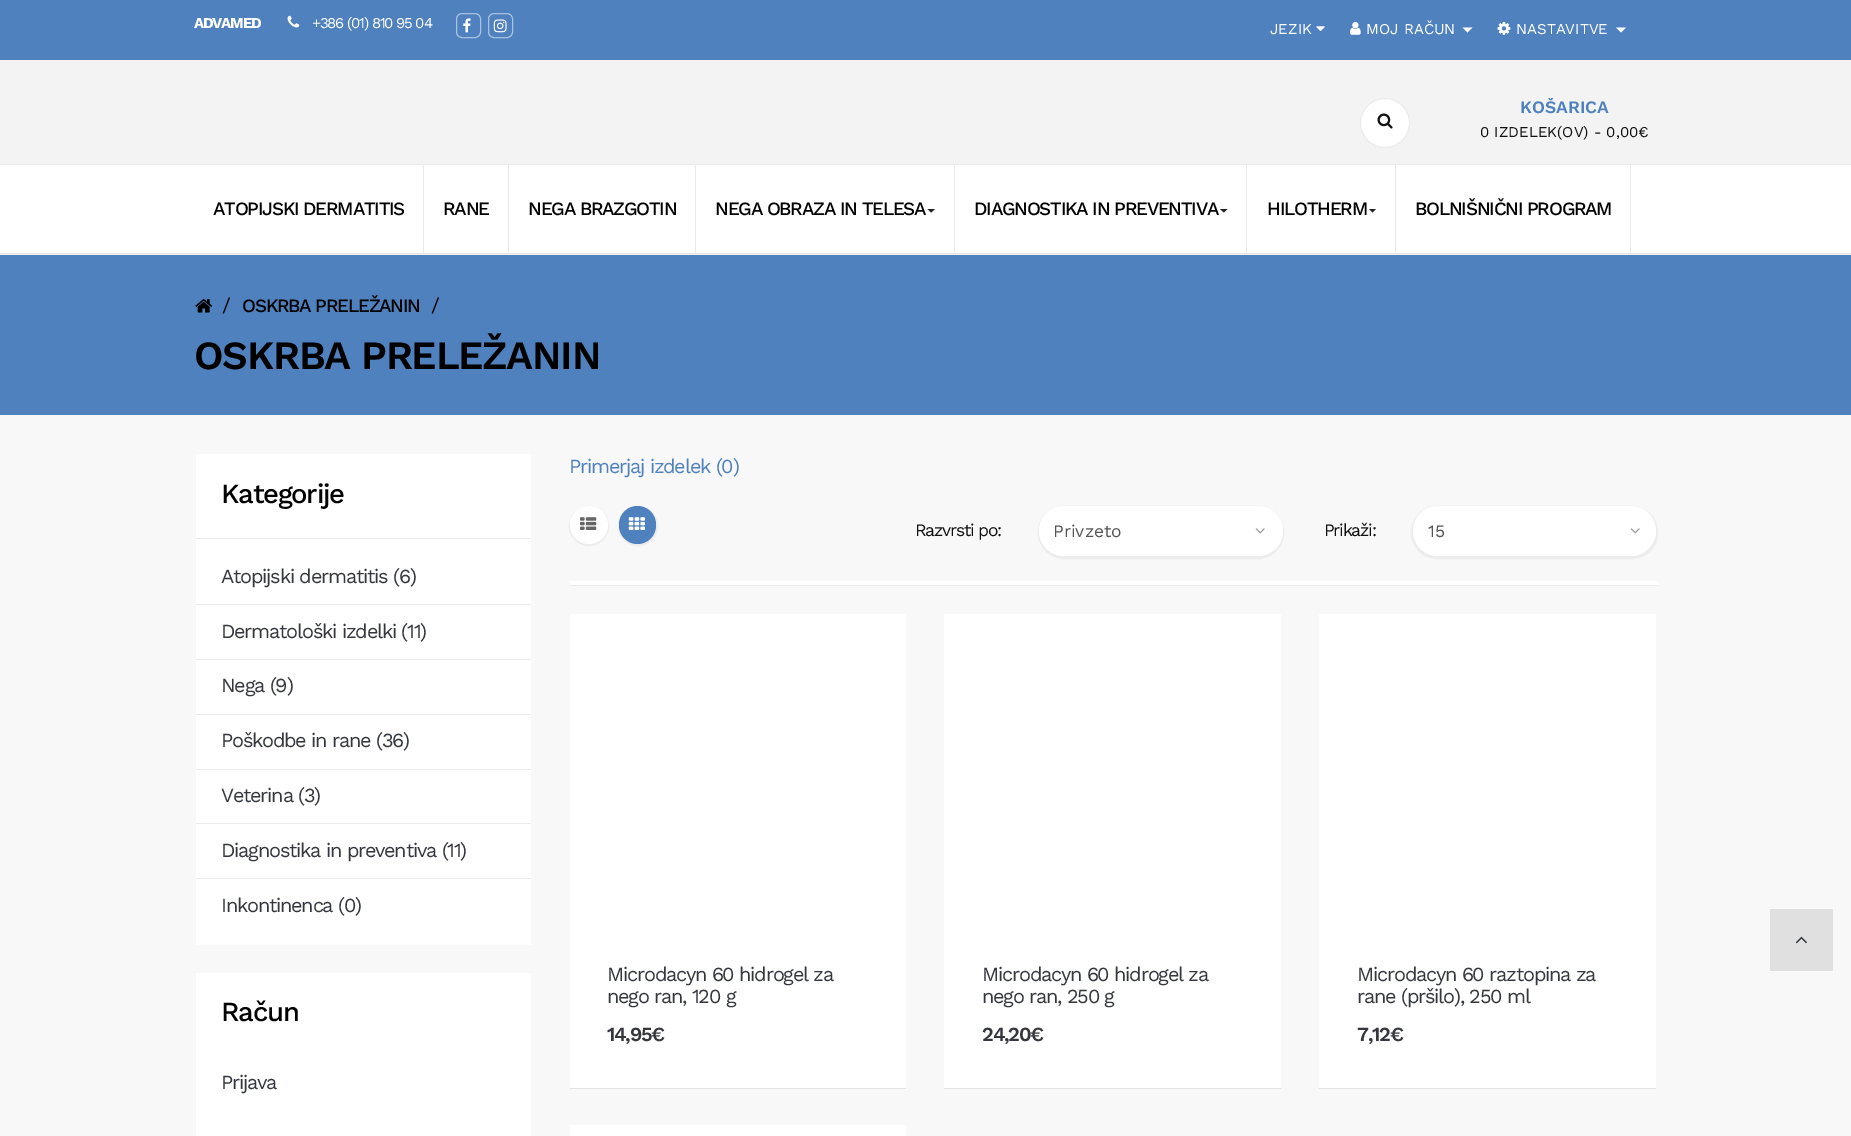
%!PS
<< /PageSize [1851 1136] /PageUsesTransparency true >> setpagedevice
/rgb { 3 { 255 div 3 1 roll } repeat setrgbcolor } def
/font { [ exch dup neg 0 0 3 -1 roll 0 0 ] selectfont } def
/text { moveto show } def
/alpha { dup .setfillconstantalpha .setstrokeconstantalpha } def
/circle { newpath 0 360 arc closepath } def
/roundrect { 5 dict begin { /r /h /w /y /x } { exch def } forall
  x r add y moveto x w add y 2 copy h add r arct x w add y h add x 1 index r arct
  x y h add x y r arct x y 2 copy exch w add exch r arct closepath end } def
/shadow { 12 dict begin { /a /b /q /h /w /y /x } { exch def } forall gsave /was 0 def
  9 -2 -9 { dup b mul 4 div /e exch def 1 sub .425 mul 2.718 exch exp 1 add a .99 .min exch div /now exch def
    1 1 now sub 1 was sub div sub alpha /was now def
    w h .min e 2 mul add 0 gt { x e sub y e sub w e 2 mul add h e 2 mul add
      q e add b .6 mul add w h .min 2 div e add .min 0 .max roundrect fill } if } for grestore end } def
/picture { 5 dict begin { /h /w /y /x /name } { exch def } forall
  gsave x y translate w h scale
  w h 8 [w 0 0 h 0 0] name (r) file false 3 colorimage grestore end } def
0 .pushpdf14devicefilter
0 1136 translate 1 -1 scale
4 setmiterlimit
248 248 248 rgb
0 0 1851 1136 rectfill
79 129 190 rgb
0 0 1851 60 rectfill
(img_01.rgb) 287 15 13 13 picture
167 192 223 rgb
456.5 13.5 24 24 5.5 roundrect stroke
(img_02.rgb) 463 18 8 15 picture
488.5 13.5 24 24 5.5 roundrect stroke
(img_03.rgb) 493 19 14 14 picture
(img_04.rgb) 1316 26 9 5 picture
(img_05.rgb) 1350 22 11 13 picture
255 255 255 rgb
1462.5 27.5 moveto 10 0 rlineto -5 5 rlineto closepath fill
(img_06.rgb) 1497 21 14 14 picture
1616 27.5 moveto 10 0 rlineto -5 5 rlineto closepath fill
226 226 226 rgb
0 61 1851 193 0 0.5 1 shadow
243 243 243 rgb
0 60 1851 104 rectfill
255 255 255 rgb
1385 123 24.5 circle gsave fill grestore
235 235 235 rgb
stroke
(img_07.rgb) 1377 113 16 16 picture
255 255 255 rgb
0 165 1851 88 rectfill
235 235 235 rgb
0 164 1851 1 rectfill
423 165 1 88 rectfill
508 165 1 88 rectfill
695 165 1 88 rectfill
954 165 1 88 rectfill
34 34 34 rgb
927.5 209 moveto 7.5 0 rlineto -4 3.5 rlineto closepath fill
235 235 235 rgb
1246 165 1 88 rectfill
34 34 34 rgb
1220 209 moveto 7.5 0 rlineto -3.5 3.5 rlineto closepath fill
235 235 235 rgb
1395 165 1 88 rectfill
34 34 34 rgb
1369 209 moveto 7 0 rlineto -3.5 3.5 rlineto closepath fill
235 235 235 rgb
1630 165 1 88 rectfill
79 129 190 rgb
0 255 1851 160 rectfill
(img_08.rgb) 195 299 18 14 picture
235 235 235 rgb
196 455 moveto 0 84 rlineto 335 0 rlineto 0 -1 rlineto -335 0 rlineto closepath fill
255 255 255 rgb
196 454 335 84 rectfill
196 539 335 406 rectfill
235 235 235 rgb
196 604 335 1 rectfill
196 659 335 1 rectfill
196 714 335 1 rectfill
196 769 335 1 rectfill
196 823 335 1 rectfill
196 878 335 1 rectfill
255 255 255 rgb
196 973 335 137 rectfill
196 1110 335 26 rectfill
235 235 235 rgb
570 585 moveto 0 1 rlineto 1088 0 rlineto 0 -132 rlineto 0 131 rlineto closepath fill
255 255 255 rgb
570 581 1088 4 rectfill
235 235 235 rgb
569 506 40 40 20 0.5 1 shadow
255 255 255 rgb
589 525 19 circle fill
(img_09.rgb) 580 517 17 13 picture
235 235 235 rgb
618 506 40 40 20 0.5 1 shadow
79 129 190 rgb
619 506 37 38 18.5 roundrect fill
(img_10.rgb) 628 517 17 13 picture
235 235 235 rgb
1038 506 246 53 26.5 0.5 1 shadow
255 255 255 rgb
1039 506 244 50 25 roundrect fill
(img_11.rgb) 1255 528 10 6 picture
235 235 235 rgb
1411 506 247 53 26.5 0.5 1 shadow
255 255 255 rgb
1413 506 243 50 25 roundrect fill
(img_11.rgb) 1630 528 10 6 picture
226 226 226 rgb
570 1088 336 1 rectfill
255 255 255 rgb
570 614 336 474 rectfill
226 226 226 rgb
944 1088 337 1 rectfill
255 255 255 rgb
944 614 337 474 rectfill
226 226 226 rgb
1319 1088 337 1 rectfill
255 255 255 rgb
1319 614 337 474 rectfill
570 1125 336 11 rectfill
224 224 224 rgb
1770 909 63 62 rectfill
(img_12.rgb) 1795 936 12 8 picture
/WorkSans-Bold 15 font
255 255 255 rgb
194 28 moveto -1.25 0 (ADVAMED) ashow
/WorkSans-Regular 15 font
312 28 moveto -1.25 0 (+386 \(01\) 810 95 04) ashow
(JEZIK) 1270 34 text
(MOJ RAČUN) 1366 34 text
(NASTAVITVE) 1516 34 text
gsave
1473 98 185 50 rectclip
/WorkSans-SemiBold 17.5 font
79 129 190 rgb
(KOŠARICA) 1520 113 text
grestore
17 17 17 rgb
(0 IZDELEK\(OV\) - 0,00€) 1480 137 text
/WorkSans-Medium 18.75 font
0 0 0 rgb
213 215 moveto -1.25 0 (ATOPIJSKI DERMATITIS) ashow
443 215 moveto -1.25 0 (RANE) ashow
528 215 moveto -1.25 0 (NEGA BRAZGOTIN) ashow
715 215 moveto -1.25 0 (NEGA OBRAZA IN TELESA) ashow
974 215 moveto -1.25 0 (DIAGNOSTIKA IN PREVENTIVA) ashow
1267 215 moveto -1.25 0 (HILOTHERM) ashow
1415 215 moveto -1.25 0 (BOLNIŠNIČNI PROGRAM) ashow
/WorkSans-Regular 20 font
222 312 moveto -1.25 0 (/) ashow
/WorkSans-Medium 18.75 font
242 312 moveto -1.25 0 (OSKRBA PRELEŽANIN) ashow
/WorkSans-Regular 20 font
431 312 moveto -1.25 0 (/) ashow
/WorkSans-SemiBold 40 font
194 369 moveto -1.25 0 (OSKRBA PRELEŽANIN) ashow
/WorkSans-Medium 27.5 font
221 503 moveto -1.25 0 (Kategorije) ashow
/WorkSans-Regular 20 font
53 55 62 rgb
221 583 moveto -1.25 0 (Atopijski dermatitis \(6\)) ashow
221 638 moveto -1.25 0 (Dermatološki izdelki \(11\)) ashow
221 692 moveto -1.25 0 (Nega \(9\)) ashow
221 747 moveto -1.25 0 (Poškodbe in rane \(36\)) ashow
221 802 moveto -1.25 0 (Veterina \(3\)) ashow
221 857 moveto -1.25 0 (Diagnostika in preventiva \(11\)) ashow
221 912 moveto -1.25 0 (Inkontinenca \(0\)) ashow
/WorkSans-Medium 27.5 font
0 0 0 rgb
221 1021 moveto -1.25 0 (Račun) ashow
/WorkSans-Regular 20 font
53 55 62 rgb
221 1089 moveto -1.25 0 (Prijava) ashow
79 129 190 rgb
569 473 moveto -1.25 0 (Primerjaj izdelek \(0\)) ashow
/WorkSans-Regular 17.5 font
17 17 17 rgb
915 536 moveto -1.25 0 (Razvrsti po:) ashow
85 85 85 rgb
(Privzeto) 1053 537 text
17 17 17 rgb
1324 536 moveto -1.25 0 (Prikaži:) ashow
85 85 85 rgb
(15) 1428 537 text
/WorkSans-Regular 20 font
53 55 62 rgb
607 981 moveto -1.25 0 (Microdacyn 60 hidrogel za) ashow
607 1003 moveto -1.25 0 (nego ran, 120 g) ashow
/WorkSans-SemiBold 20 font
607 1041 moveto -1.25 0 (14,95€) ashow
/WorkSans-Regular 20 font
982 981 moveto -1.25 0 (Microdacyn 60 hidrogel za) ashow
982 1003 moveto -1.25 0 (nego ran, 250 g) ashow
/WorkSans-SemiBold 20 font
982 1041 moveto -1.25 0 (24,20€) ashow
/WorkSans-Regular 20 font
1357 981 moveto -1.25 0 (Microdacyn 60 raztopina za) ashow
1357 1003 moveto -1.25 0 (rane \(pršilo\), 250 ml) ashow
/WorkSans-SemiBold 20 font
1357 1041 moveto -1.25 0 (7,12€) ashow
.poppdf14devicefilter showpage
